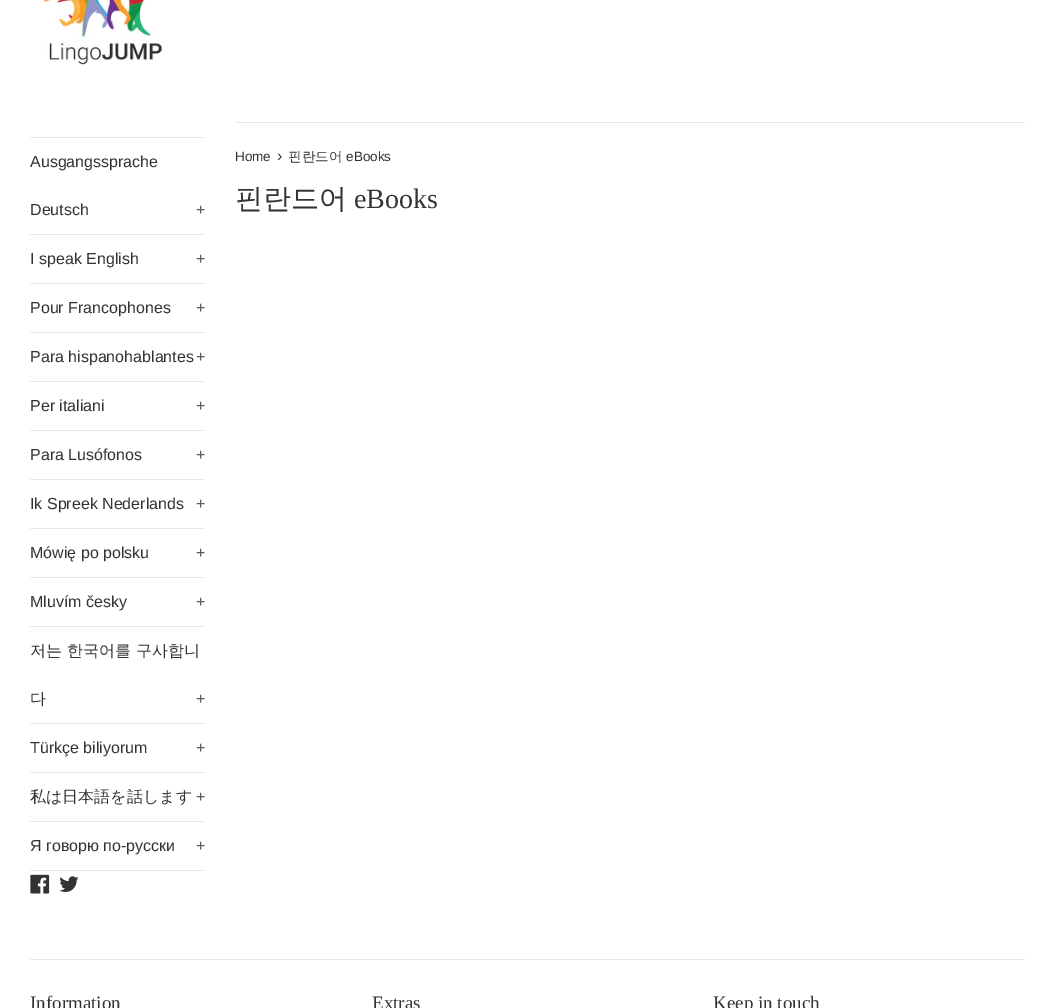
%!PS
<< /PageSize [1055 1008] >> setpagedevice
/rgb { 3 { 255 div 3 1 roll } repeat setrgbcolor } def
/font { [ exch dup neg 0 0 3 -1 roll 0 0 ] selectfont } def
/text { moveto show } def
/picture { 5 dict begin { /h /w /y /x /name } { exch def } forall
  gsave x y translate w h scale
  w h 8 [w 0 0 h 0 0] name (r) file false 3 colorimage grestore end } def
0 1008 translate 1 -1 scale
4 setmiterlimit
255 255 255 rgb
0 0 1055 1008 rectfill
(img_01.rgb) 43 0 120 65 picture
232 232 232 rgb
30 137 175 1 rectfill
30 234 175 1 rectfill
30 283 175 1 rectfill
30 332 175 1 rectfill
30 381 175 1 rectfill
30 430 175 1 rectfill
30 479 175 1 rectfill
30 528 175 1 rectfill
30 577 175 1 rectfill
30 626 175 1 rectfill
30 723 175 1 rectfill
30 772 175 1 rectfill
30 821 175 1 rectfill
30 870 175 1 rectfill
(img_02.rgb) 30 874 20 20 picture
(img_03.rgb) 59 876 20 16 picture
235 122 790 1 rectfill
30 959 995 1 rectfill
/LiberationSans-Regular 16 font
51 51 51 rgb
(Ausgangssprache) 30 167 text
(Deutsch) 30 215 text
92 92 92 rgb
(+) 196 215 text
51 51 51 rgb
(I speak English) 30 264 text
92 92 92 rgb
(+) 196 264 text
51 51 51 rgb
(Pour Francophones) 30 313 text
92 92 92 rgb
(+) 196 313 text
51 51 51 rgb
(Para hispanohablantes) 30 362 text
92 92 92 rgb
(+) 196 362 text
51 51 51 rgb
(Per italiani) 30 411 text
92 92 92 rgb
(+) 196 411 text
51 51 51 rgb
(Para Lusófonos) 30 460 text
92 92 92 rgb
(+) 196 460 text
51 51 51 rgb
(Ik Spreek Nederlands) 30 509 text
92 92 92 rgb
(+) 196 509 text
51 51 51 rgb
(Mówię po polsku) 30 558 text
92 92 92 rgb
(+) 196 558 text
51 51 51 rgb
(Mluvím česky) 30 607 text
92 92 92 rgb
(+) 196 607 text
/WenQuanYiZenHei-Medium 16 font
51 51 51 rgb
(저는 한국어를 구사합니) 30 656 text
(다) 30 704 text
/LiberationSans-Regular 16 font
92 92 92 rgb
(+) 196 704 text
51 51 51 rgb
(Türkçe biliyorum) 30 753 text
92 92 92 rgb
(+) 196 753 text
/WenQuanYiZenHei-Medium 16 font
51 51 51 rgb
(私は日本語を話します) 30 802 text
/LiberationSans-Regular 16 font
92 92 92 rgb
(+) 196 802 text
51 51 51 rgb
(Я говорю по-русски) 30 851 text
92 92 92 rgb
(+) 196 851 text
/LiberationSans-Regular 13.5 font
51 51 51 rgb
(Home) 235 161 text
/LiberationSans-Regular 16 font
(›) 277 161 text
/WenQuanYiZenHei-Medium 13.5 font
(핀란드어) 288 161 text
/LiberationSans-Regular 13.5 font
(eBooks) 346 161 text
/WenQuanYiZenHei-Medium 28 font
(핀란드어) 235 208 text
/LiberationSerif-Regular 28 font
(eBooks) 354 208 text
/LiberationSerif-Regular 19 font
(Information) 30 1009 text
(Extras) 372 1009 text
(Keep in touch) 713 1009 text
showpage
